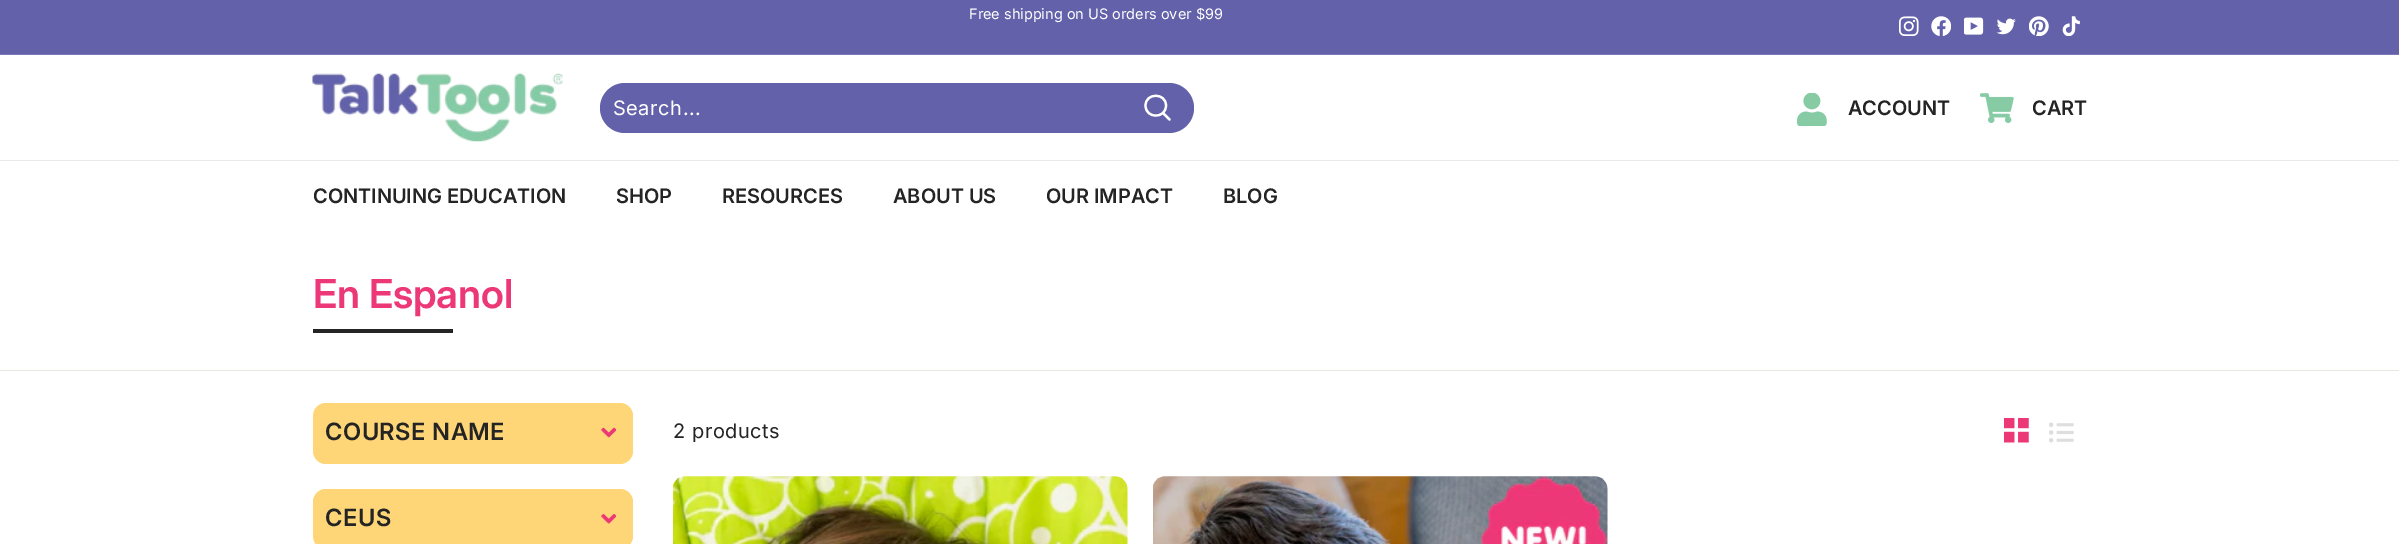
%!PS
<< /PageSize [2399 544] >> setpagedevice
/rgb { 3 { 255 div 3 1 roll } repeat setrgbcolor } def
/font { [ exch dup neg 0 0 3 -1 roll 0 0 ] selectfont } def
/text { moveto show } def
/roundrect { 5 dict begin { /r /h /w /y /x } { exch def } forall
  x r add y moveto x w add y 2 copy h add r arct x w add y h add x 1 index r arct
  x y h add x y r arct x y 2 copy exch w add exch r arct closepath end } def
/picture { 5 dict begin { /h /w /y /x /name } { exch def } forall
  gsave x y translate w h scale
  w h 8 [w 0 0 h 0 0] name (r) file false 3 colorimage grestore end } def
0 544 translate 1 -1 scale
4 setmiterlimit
255 255 255 rgb
0 0 2399 544 rectfill
99 97 170 rgb
0 0 2399 54 rectfill
(img_01.rgb) 1899 16 20 20 picture
(img_02.rgb) 1931 16 20 20 picture
(img_03.rgb) 1964 17 20 18 picture
(img_04.rgb) 1996 18 20 17 picture
(img_05.rgb) 2029 16 20 20 picture
(img_06.rgb) 2062 16 18 20 picture
122 121 183 rgb
0 54 2399 1 rectfill
(img_07.rgb) 312 73 251 69 picture
99 97 170 rgb
600 83 594 50 25 roundrect fill
255 255 255 rgb
2.2 setlinewidth
1 setlinecap
1 setlinejoin
1166 105.5 moveto 0 13.5 -20.5 13.5 -20.5 0 rcurveto 0 -13 20.5 -13 20.5 0 rcurveto closepath 1169.5 119.5 moveto -6.5 -6.5 rlineto stroke
(img_08.rgb) 1797 93 30 33 picture
(img_09.rgb) 1980 93 34 30 picture
233 233 233 rgb
0 160 2399 1 rectfill
36 36 36 rgb
313 329 140 4 rectfill
232 232 225 rgb
0 370 2399 1 rectfill
255 214 119 rgb
313 403 320 61 13 roundrect fill
(img_10.rgb) 601 427 15 11 picture
313 489 320 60 13 roundrect fill
(img_11.rgb) 601 514 15 10 picture
(img_12.rgb) 2004 418 25 25 picture
(img_13.rgb) 2049 422 25 21 picture
(img_14.rgb) 673 476 455 68 picture
(img_15.rgb) 1153 476 455 68 picture
gsave
313 8 1567 40 rectclip
/Inter-Regular 14.5 font
255 255 255 rgb
(Free shipping on US orders over $99) 969 19 text
grestore
/Inter-Regular 20 font
255 255 255 rgb
613 115 moveto 0.5 0 (Search...) ashow
/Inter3-SemiBold 20 font
36 36 36 rgb
(ACCOUNT) 1848 115 text
(CART) 2032 115 text
(CONTINUING EDUCATION) 313 203 text
(SHOP) 616 203 text
(RESOURCES) 722 203 text
(ABOUT US) 893 203 text
(OUR IMPACT) 1046 203 text
(BLOG) 1223 203 text
/Inter-SemiBold 40 font
237 56 119 rgb
(En Espanol) 313 308 text
/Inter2-SemiBold 23.75 font
36 36 36 rgb
325 440 moveto 0.5 0 (COURSE NAME) ashow
325 526 moveto 0.5 0 (CEUS) ashow
/Inter-Regular 20 font
673 438 moveto 0.5 0 (2 products) ashow
showpage
